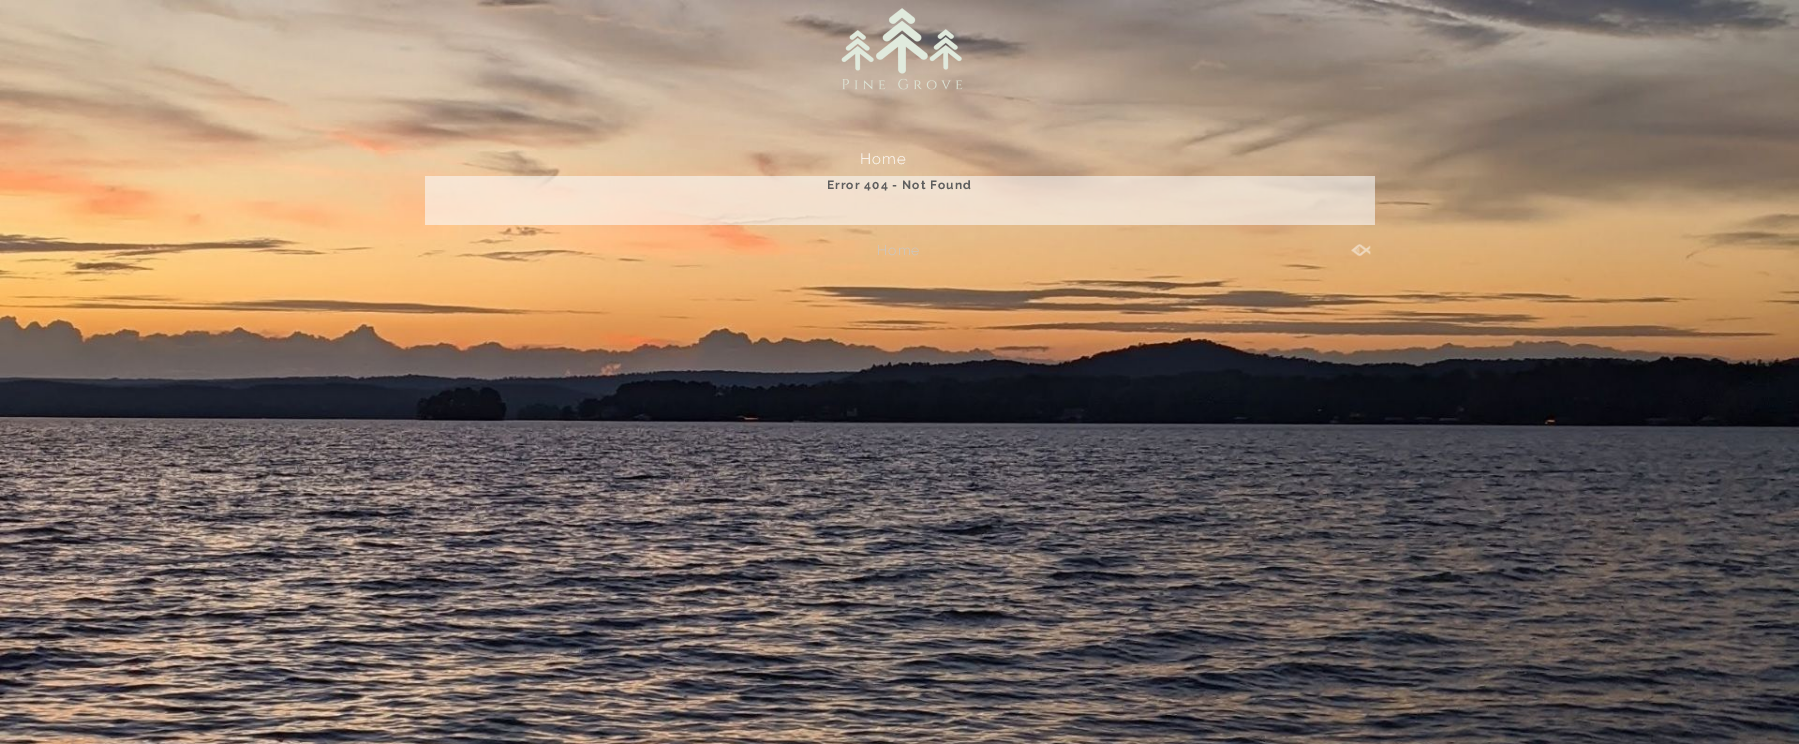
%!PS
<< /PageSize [1799 744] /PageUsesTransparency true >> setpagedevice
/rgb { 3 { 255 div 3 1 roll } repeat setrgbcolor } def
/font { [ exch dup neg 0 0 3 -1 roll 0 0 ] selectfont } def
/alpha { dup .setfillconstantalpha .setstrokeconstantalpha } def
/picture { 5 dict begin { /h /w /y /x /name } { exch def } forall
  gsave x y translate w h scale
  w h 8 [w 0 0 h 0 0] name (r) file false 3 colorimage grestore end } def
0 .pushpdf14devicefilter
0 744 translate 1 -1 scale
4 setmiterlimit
255 255 255 rgb
0 0 1799 744 rectfill
(img_01.rgb) 0 0 1799 744 picture
(img_02.rgb) 841 8 122 82 picture
0.59 alpha
250 250 250 rgb
425 176 950 49 rectfill
1 alpha
(img_03.rgb) 1351 244 20 13 picture
/Raleway-Light 15 font
255 255 255 rgb
860 164 moveto 1 0 (Home) ashow
/Raleway-Bold 12 font
94 94 94 rgb
827 189 moveto 1 0 (Error 404 - Not Found) ashow
/Raleway-Light 14 font
200 199 199 rgb
877 255 moveto 1 0 (Home) ashow
.poppdf14devicefilter showpage
